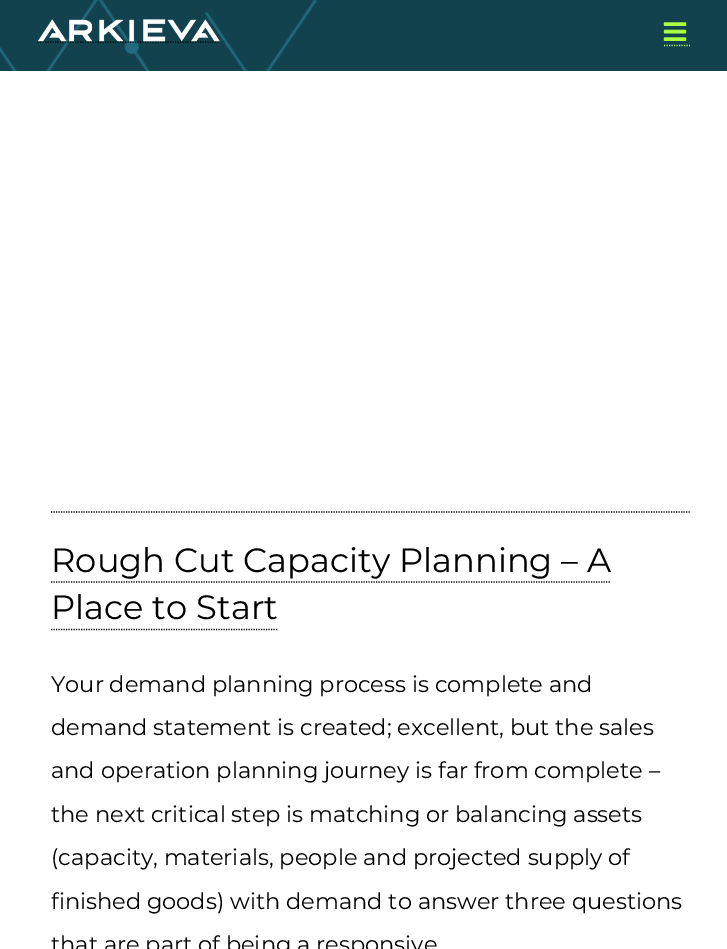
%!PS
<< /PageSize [727 949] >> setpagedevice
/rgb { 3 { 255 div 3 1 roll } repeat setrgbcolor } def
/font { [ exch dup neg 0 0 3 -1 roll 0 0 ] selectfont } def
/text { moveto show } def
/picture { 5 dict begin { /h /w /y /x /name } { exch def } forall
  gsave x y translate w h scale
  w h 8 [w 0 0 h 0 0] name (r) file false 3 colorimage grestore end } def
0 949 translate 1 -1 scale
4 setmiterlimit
255 255 255 rgb
0 0 727 949 rectfill
18 66 78 rgb
0 0 727 71 rectfill
(img_01.rgb) 0 0 317 71 picture
0 0 0 rgb
1.2 setlinewidth
[1.25 1.25] 0 setdash
37.5 42 moveto 182.5 0 rlineto stroke
(img_02.rgb) 37 19 183 23 picture
169 254 63 rgb
664 45.5 moveto 26 0 rlineto stroke
(img_03.rgb) 663 22 24 19 picture
0 0 0 rgb
51 512 moveto 639 0 rlineto stroke
51 582 moveto 560 0 rlineto stroke
51 629.5 moveto 226.5 0 rlineto stroke
/Montserrat-Thin 33.75 font
(Rough Cut Capacity Planning – A) 51 572 text
(Place to Start) 51 619 text
/Montserrat-Thin 22.5 font
(Your demand planning process is complete and) 51 692 text
(demand statement is created; excellent, but the sales) 51 735 text
(and operation planning journey is far from complete –) 51 778 text
(the next critical step is matching or balancing assets) 51 822 text
(\(capacity, materials, people and projected supply of) 51 865 text
(finished goods\) with demand to answer three questions) 51 909 text
(that are part of being a responsive) 51 952 text
showpage
